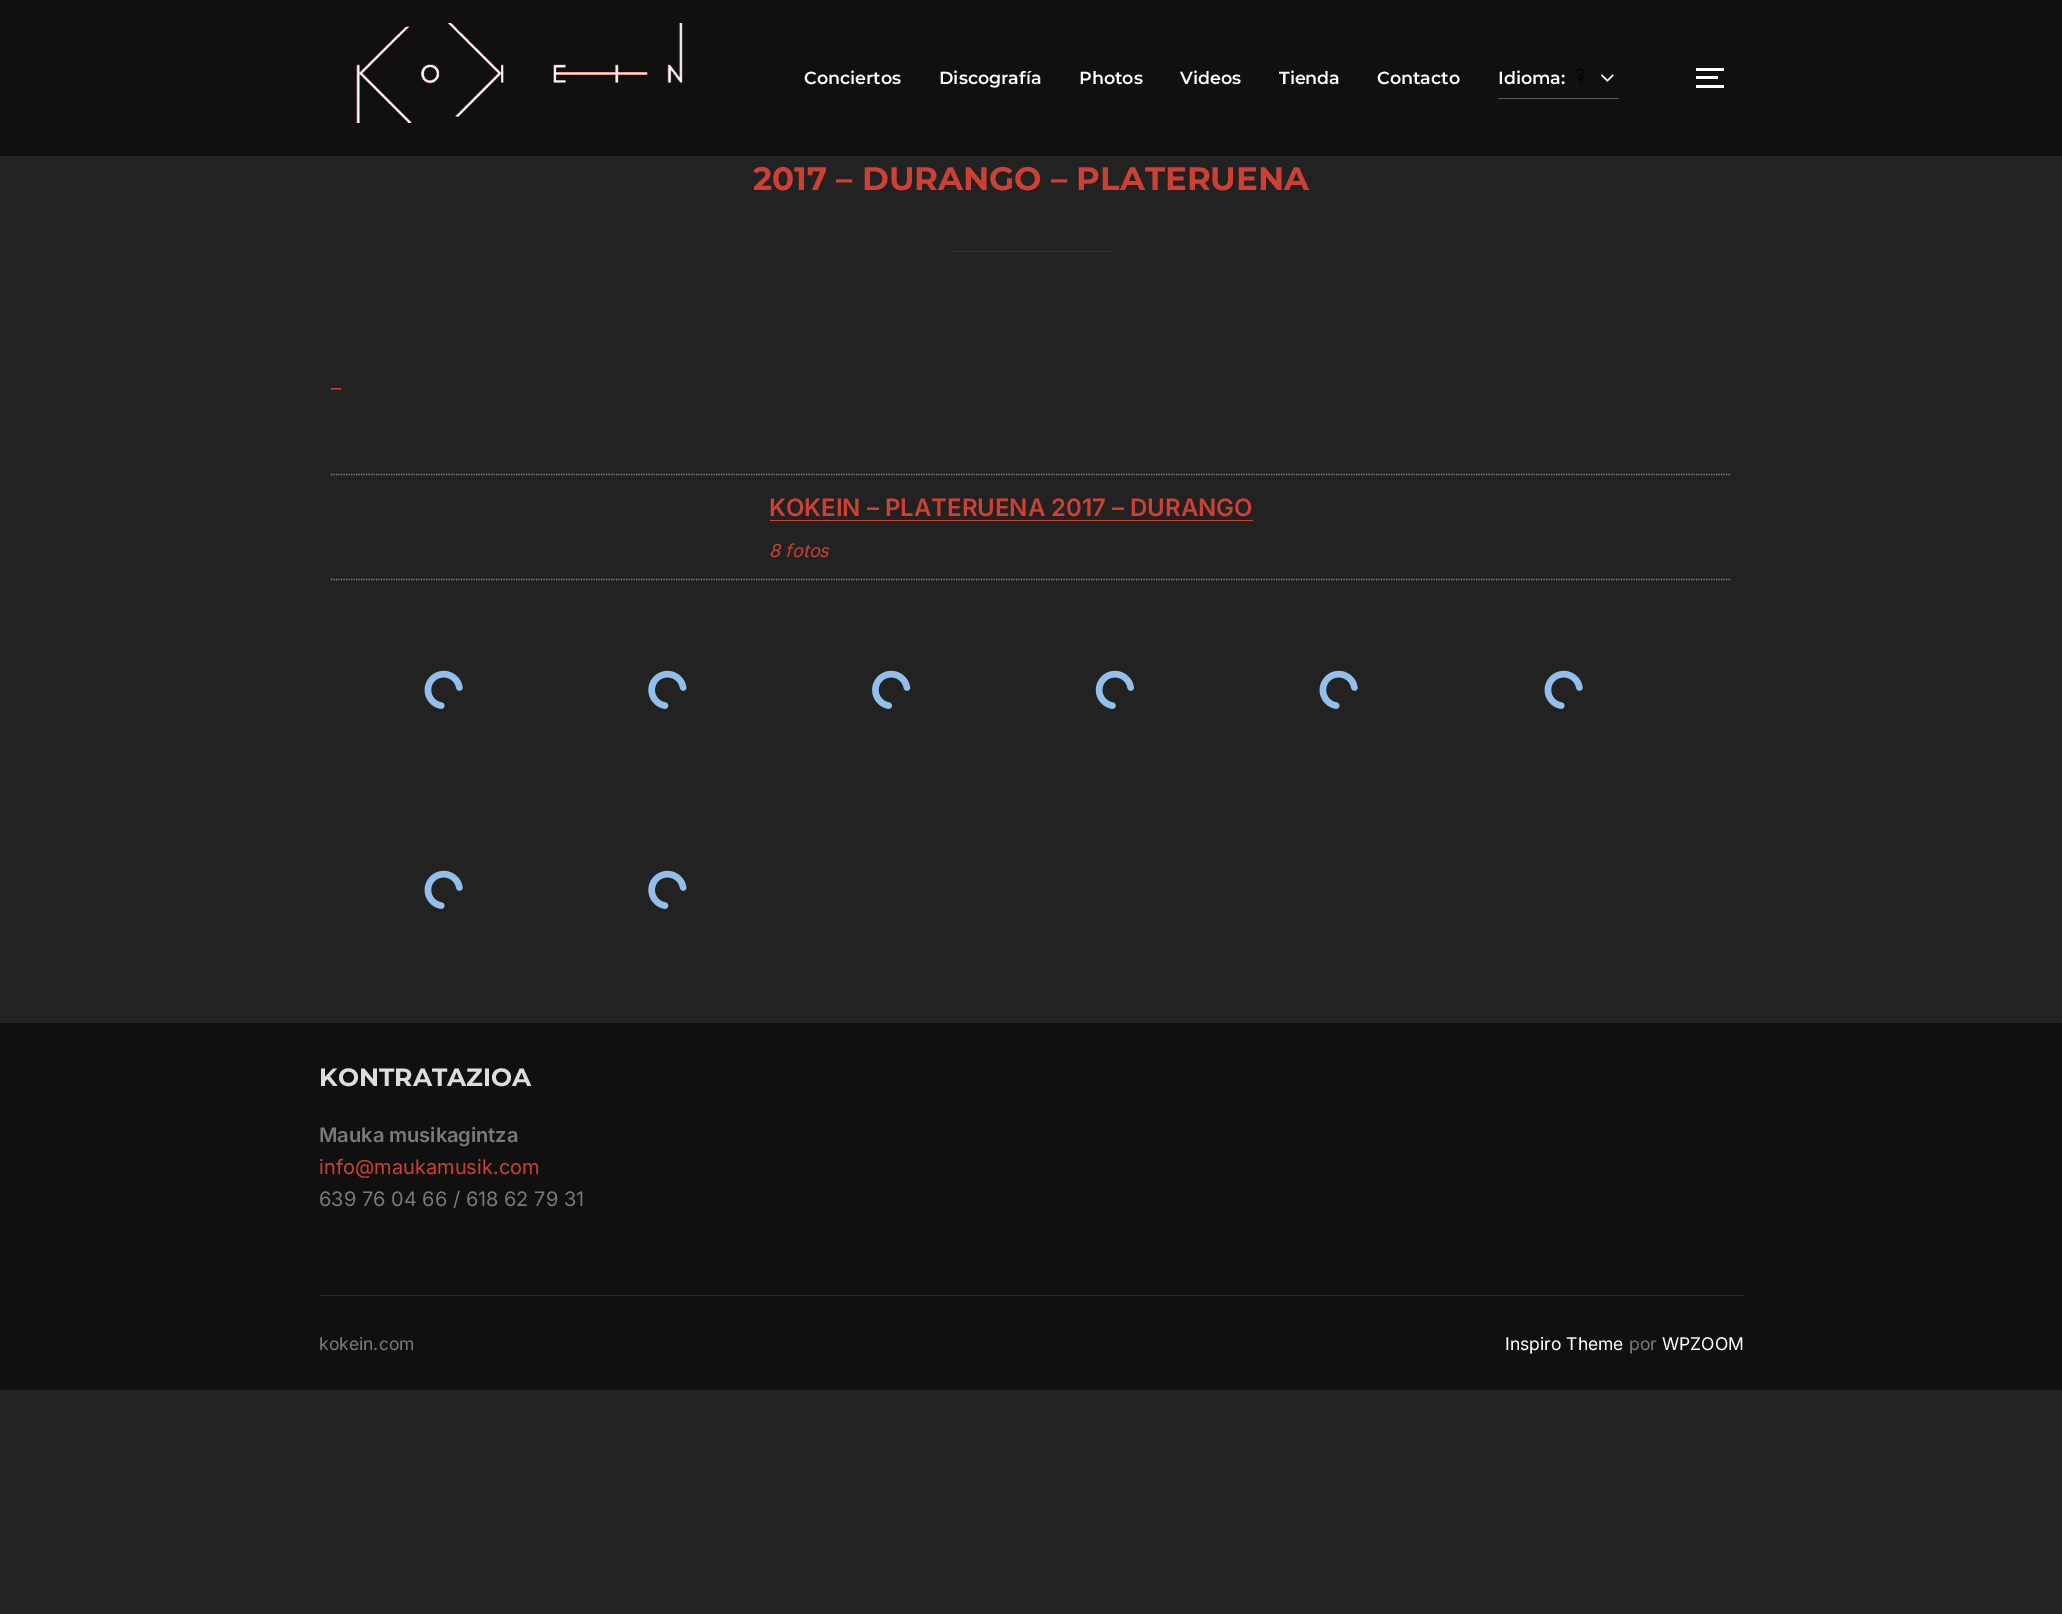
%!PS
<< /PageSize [2062 1614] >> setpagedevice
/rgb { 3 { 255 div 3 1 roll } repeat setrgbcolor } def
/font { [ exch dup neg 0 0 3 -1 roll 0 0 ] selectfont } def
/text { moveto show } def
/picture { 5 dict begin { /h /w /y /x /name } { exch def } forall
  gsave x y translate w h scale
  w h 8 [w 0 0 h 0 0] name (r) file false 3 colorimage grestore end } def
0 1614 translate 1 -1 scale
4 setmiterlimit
34 34 34 rgb
0 0 2062 1614 rectfill
16 16 16 rgb
0 0 2062 156 rectfill
(img_01.rgb) 356 23 327 100 picture
88 88 88 rgb
1498 98 121 1 rectfill
(img_02.rgb) 1576 69 8 15 picture
(img_03.rgb) 1601 74 13 8 picture
255 255 255 rgb
1696 68 28 3 rectfill
1696 76 22 3 rectfill
1696 85 28 3 rectfill
51 51 51 rgb
950 251 163 1 rectfill
136 136 136 rgb
1.2 setlinewidth
[1.25 1.25] 0 setdash
331 474.5 moveto 1400 0 rlineto stroke
331 579.5 moveto 1400 0 rlineto stroke
206 64 51 rgb
770 520 483 1 rectfill
(img_04.rgb) 424 670 39 39 picture
(img_05.rgb) 648 670 39 39 picture
(img_06.rgb) 872 670 39 39 picture
(img_07.rgb) 1095 670 39 39 picture
(img_04.rgb) 1319 670 39 39 picture
(img_04.rgb) 1544 670 39 39 picture
(img_04.rgb) 424 870 39 39 picture
(img_05.rgb) 648 870 39 39 picture
16 16 16 rgb
0 1023 2062 367 rectfill
40 40 40 rgb
319 1295 1425 1 rectfill
/Montserrat-SemiBold 17.5 font
255 255 255 rgb
(Conciertos) 804 84 text
(Discografía) 939 84 text
(Photos) 1079 84 text
(Videos) 1180 84 text
(Tienda) 1279 84 text
(Contacto) 1377 84 text
(Idioma:) 1498 84 text
/Montserrat-Bold 32.5 font
206 64 51 rgb
(2017 – DURANGO – PLATERUENA) 753 190 text
/Inter-Regular 20 font
(–) 331 395 text
/Inter-SemiBold 24 font
(KOKEIN – PLATERUENA 2017 – DURANGO) 769 516 text
/Inter-Italic 18 font
(8 fotos) 769 557 text
/Montserrat-Bold 25 font
221 221 221 rgb
(KONTRATAZIOA) 319 1086 text
/Inter-SemiBold 20 font
120 120 127 rgb
(Mauka musikagintza) 319 1142 text
/Inter-Regular 20 font
206 64 51 rgb
(info@maukamusik.com) 319 1174 text
120 120 127 rgb
(639 76 04 66 / 618 62 79 31) 319 1206 text
/Inter-Regular 17.5 font
(kokein.com) 319 1350 text
255 255 255 rgb
(Inspiro Theme) 1505 1350 text
120 120 127 rgb
(por) 1629 1350 text
255 255 255 rgb
(WPZOOM) 1662 1350 text
showpage
